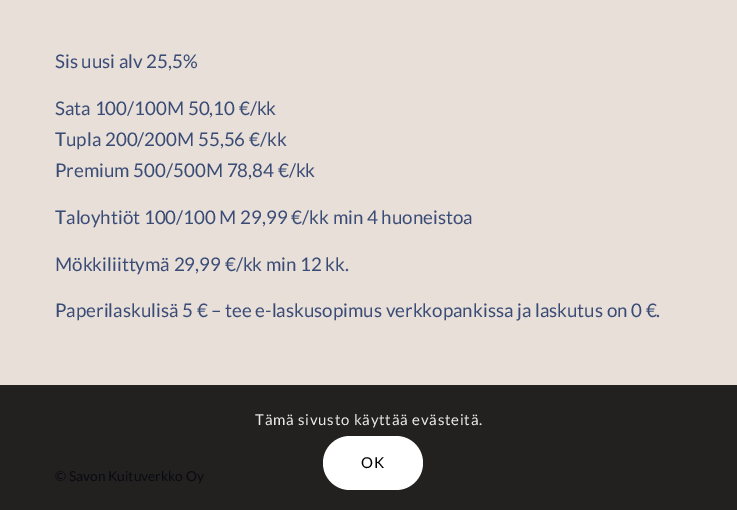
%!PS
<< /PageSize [737 510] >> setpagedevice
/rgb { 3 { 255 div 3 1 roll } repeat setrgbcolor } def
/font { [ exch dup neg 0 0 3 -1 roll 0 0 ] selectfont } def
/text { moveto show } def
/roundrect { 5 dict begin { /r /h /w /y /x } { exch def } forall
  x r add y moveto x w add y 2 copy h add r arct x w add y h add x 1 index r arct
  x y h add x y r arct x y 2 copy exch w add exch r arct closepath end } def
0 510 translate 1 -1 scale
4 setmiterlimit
231 223 216 rgb
0 0 737 510 rectfill
35 33 32 rgb
0 385 737 125 rectfill
255 255 255 rgb
323 436 100 54 27 roundrect fill
/Lato-Regular 18.75 font
58 76 118 rgb
(Sis uusi alv 25,5%) 55 68 text
(Sata 100/100M 50,10 €/kk) 55 115 text
(Tupla 200/200M 55,56 €/kk) 55 146 text
(Premium 500/500M 78,84 €/kk) 55 177 text
(Taloyhtiöt 100/100 M 29,99 €/kk min 4 huoneistoa) 55 224 text
(Mökkiliittymä 29,99 €/kk min 12 kk.) 55 271 text
(Paperilaskulisä 5 € – tee e-laskusopimus verkkopankissa ja laskutus on 0 €.) 55 317 text
/Lato-Regular 13.75 font
9 11 18 rgb
(© Savon Kuituverkko Oy) 55 481 text
/Lato-Regular 15 font
233 233 233 rgb
255 425 moveto 0.75 0 (Tämä sivusto käyttää evästeitä.) ashow
0 0 0 rgb
361 468 moveto 0.75 0 (OK) ashow
showpage
